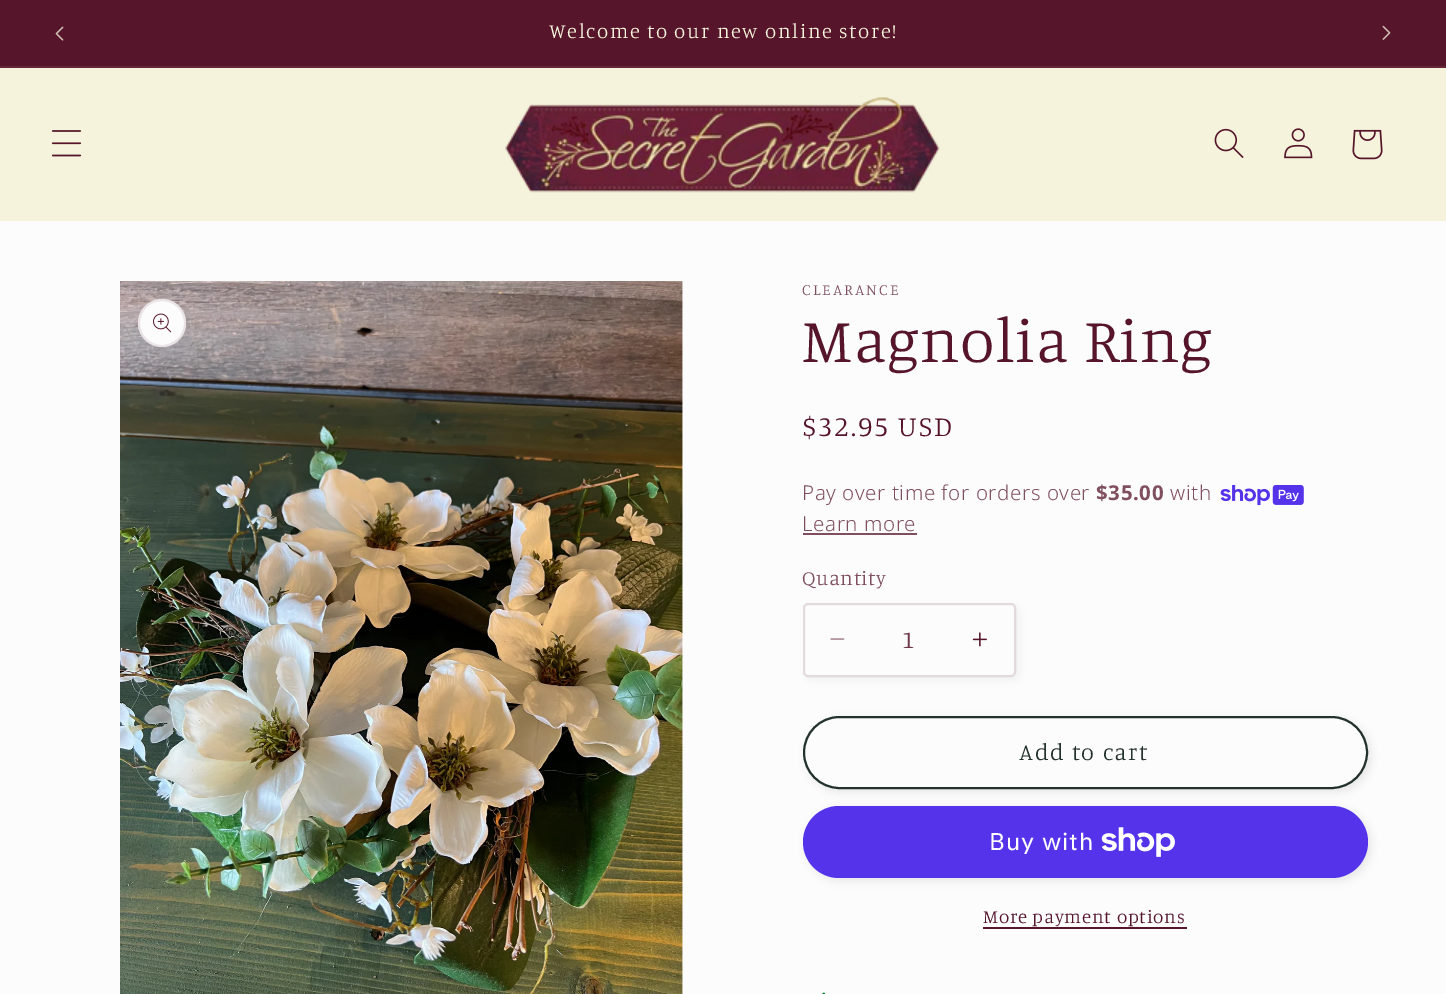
%!PS
<< /PageSize [1446 994] /PageUsesTransparency true >> setpagedevice
/rgb { 3 { 255 div 3 1 roll } repeat setrgbcolor } def
/font { [ exch dup neg 0 0 3 -1 roll 0 0 ] selectfont } def
/text { moveto show } def
/alpha { dup .setfillconstantalpha .setstrokeconstantalpha } def
/circle { newpath 0 360 arc closepath } def
/roundrect { 5 dict begin { /r /h /w /y /x } { exch def } forall
  x r add y moveto x w add y 2 copy h add r arct x w add y h add x 1 index r arct
  x y h add x y r arct x y 2 copy exch w add exch r arct closepath end } def
/shadow { 12 dict begin { /a /b /q /h /w /y /x } { exch def } forall gsave /was 0 def
  9 -2 -9 { dup b mul 4 div /e exch def 1 sub .425 mul 2.718 exch exp 1 add a .99 .min exch div /now exch def
    1 1 now sub 1 was sub div sub alpha /was now def
    w h .min e 2 mul add 0 gt { x e sub y e sub w e 2 mul add h e 2 mul add
      q e add b .6 mul add w h .min 2 div e add .min 0 .max roundrect fill } if } for grestore end } def
/picture { 5 dict begin { /h /w /y /x /name } { exch def } forall
  gsave x y translate w h scale
  w h 8 [w 0 0 h 0 0] name (r) file false 3 colorimage grestore end } def
0 .pushpdf14devicefilter
0 994 translate 1 -1 scale
4 setmiterlimit
252 252 252 rgb
0 0 1446 994 rectfill
86 21 42 rgb
0 0 1446 66 rectfill
99 39 56 rgb
0 66 1446 2 rectfill
(img_01.rgb) 55 26 9 15 picture
(img_02.rgb) 1382 25 9 15 picture
245 243 219 rgb
0 68 1446 153 rectfill
(img_03.rgb) 51 130 31 27 picture
(img_04.rgb) 505 97 435 96 picture
(img_05.rgb) 1214 128 30 30 picture
(img_06.rgb) 1284 128 29 31 picture
(img_07.rgb) 1352 129 31 31 picture
(img_08.rgb) 120 281 563 713 picture
252 252 252 rgb
162 323 24 circle fill
0.1 alpha
86 21 42 rgb
2 setlinewidth
162 323 23 circle stroke
1 alpha
(img_09.rgb) 153 313 18 20 picture
(img_10.rgb) 1220 485 84 21 picture
128 79 95 rgb
803 533 114 2 rectfill
35 50 43 rgb
806 606 213 74 5 4 0.05 shadow
252 252 252 rgb
803 603 213 74 5 roundrect fill
(img_11.rgb) 830 638 15 2 picture
(img_12.rgb) 972 632 15 15 picture
0.15 alpha
86 21 42 rgb
804 604 211 72 4 roundrect stroke
1 alpha
35 50 43 rgb
806 719 565 73 36.5 4 0.1 shadow
252 252 252 rgb
803 716 565 73 36.5 roundrect fill
804 717 563 71 35.5 roundrect stroke
35 50 43 rgb
804 717 563 71 35.5 roundrect stroke
806 809 565 72 36 4 0.1 shadow
84 51 235 rgb
803 806 565 72 36 roundrect fill
(img_13.rgb) 1101 827 74 30 picture
86 21 42 rgb
983 927 204 2 rectfill
(img_14.rgb) 822 992 4 2 picture
/Manuale-Light 20.5 font
245 243 219 rgb
549 38 moveto 1.6 0 (Welcome to our new online store!) ashow
/Manuale-Light 15.75 font
128 79 95 rgb
802 295 moveto 2 0 (CLEARANCE) ashow
/Manuale-Light 63 font
86 21 42 rgb
802 362 moveto 1 0 (Magnolia Ring) ashow
/Manuale-Light 28.5 font
802 436 moveto 2 0 ($32.95 USD) ashow
/NotoSans-Light 20.5 font
128 79 95 rgb
802 500 moveto 0.6 0 (Pay over time for orders over) ashow
/NotoSans-Bold 20.5 font
1096 500 moveto 0.6 0 ($35.00) ashow
/NotoSans-Light 20.5 font
1170 500 moveto 0.6 0 (with) ashow
802 531 moveto 0.6 0 (Learn more) ashow
/Manuale-Light 20.5 font
802 585 moveto 0.6 0 (Quantity) ashow
/Manuale-Light 25 font
111 56 74 rgb
(1) 902 648 text
/Manuale-Light 23.5 font
35 50 43 rgb
1019 760 moveto 1.6 0 (Add to cart) ashow
/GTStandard-Regular 24 font
255 255 255 rgb
989 850 moveto 1 0 (Buy with) ashow
/Manuale-Light 18.9 font
86 21 42 rgb
983 923 moveto 0.75 0 (More payment options) ashow
.poppdf14devicefilter showpage
